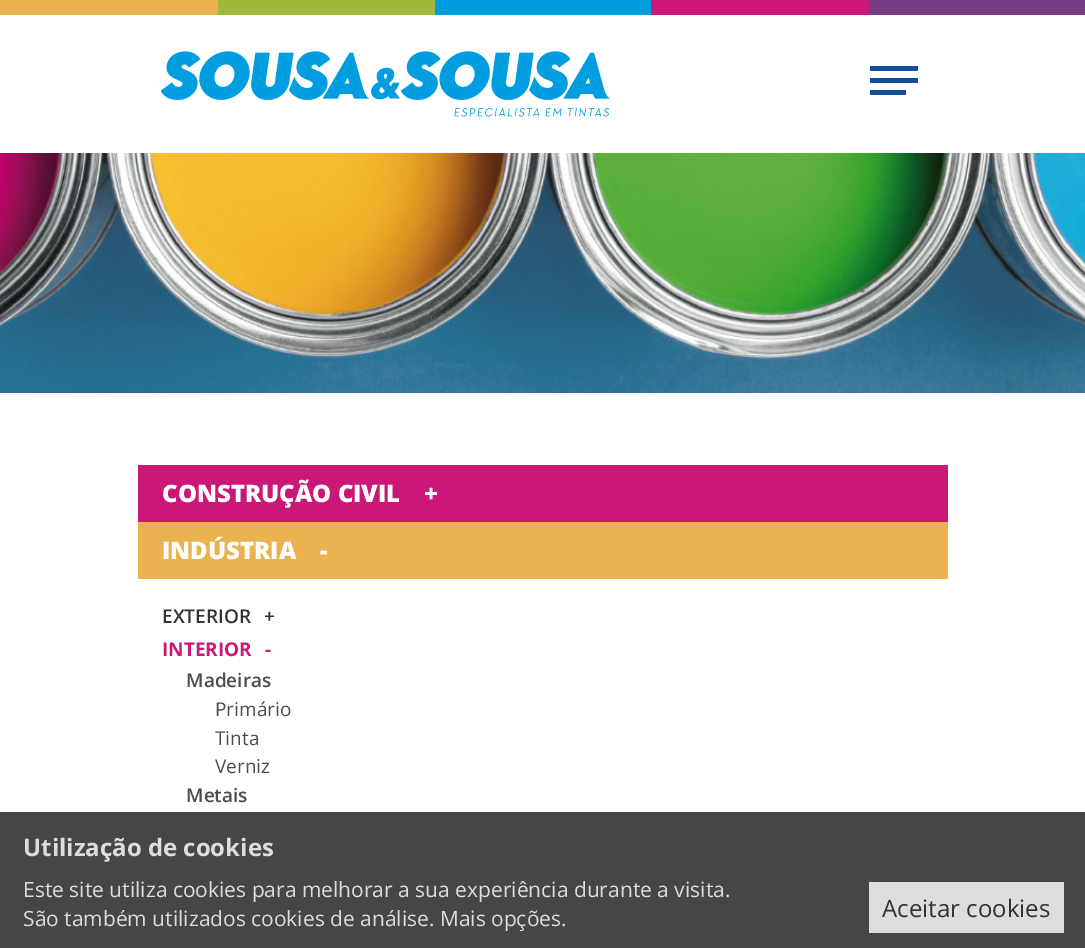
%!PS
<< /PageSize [1085 948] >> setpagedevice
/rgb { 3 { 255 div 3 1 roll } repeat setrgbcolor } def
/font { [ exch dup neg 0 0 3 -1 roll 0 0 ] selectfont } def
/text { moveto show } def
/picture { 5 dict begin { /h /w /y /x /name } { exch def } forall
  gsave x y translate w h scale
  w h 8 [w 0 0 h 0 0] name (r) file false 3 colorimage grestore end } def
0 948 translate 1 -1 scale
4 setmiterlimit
255 255 255 rgb
0 0 1085 948 rectfill
234 179 80 rgb
0 0 218 15 rectfill
158 185 60 rgb
218 0 217 15 rectfill
0 158 224 rgb
435 0 216 15 rectfill
202 23 120 rgb
651 0 218 15 rectfill
118 60 131 rgb
869 0 216 15 rectfill
(img_01.rgb) 161 51 450 66 picture
17 79 155 rgb
870 66 48 5 rectfill
870 78 48 5 rectfill
870 90 36 5 rectfill
(img_02.rgb) 0 153 1085 240 picture
202 23 120 rgb
138 465 810 57 rectfill
234 179 80 rgb
138 522 810 57 rectfill
70 70 70 rgb
0 812 1085 136 rectfill
221 221 221 rgb
869 882 195 51 rectfill
/OpenSans-ExtraBold 24 font
255 255 255 rgb
(CONSTRUÇÃO CIVIL) 162 502 text
(+) 424 502 text
(INDÚSTRIA) 162 559 text
(-) 320 559 text
/OpenSans-SemiBold 19 font
51 51 51 rgb
(EXTERIOR) 162 623 text
(+) 264 623 text
/OpenSans-Bold 19 font
202 23 120 rgb
(INTERIOR) 162 656 text
(-) 265 656 text
/OpenSans-SemiBold 19 font
77 77 77 rgb
(Madeiras) 186 687 text
/OpenSans-Regular 19 font
(Primário) 215 716 text
(Tinta) 215 745 text
(Verniz) 215 773 text
/OpenSans-SemiBold 19 font
(Metais) 186 802 text
/OpenSans-Bold 24 font
221 221 221 rgb
(Utilização de cookies) 23 856 text
/OpenSans-Regular 21 font
(Este site utiliza cookies para melhorar a sua experiência durante a visita.) 23 897 text
(São também utilizados cookies de análise. Mais opções.) 23 926 text
/OpenSans-Regular 24 font
51 51 51 rgb
(Aceitar cookies) 882 917 text
showpage
